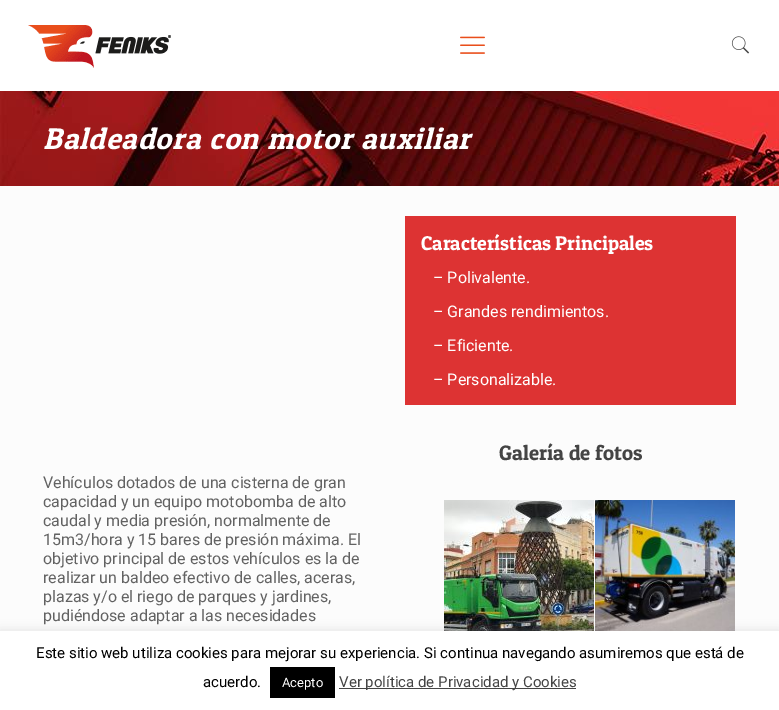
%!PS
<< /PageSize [779 710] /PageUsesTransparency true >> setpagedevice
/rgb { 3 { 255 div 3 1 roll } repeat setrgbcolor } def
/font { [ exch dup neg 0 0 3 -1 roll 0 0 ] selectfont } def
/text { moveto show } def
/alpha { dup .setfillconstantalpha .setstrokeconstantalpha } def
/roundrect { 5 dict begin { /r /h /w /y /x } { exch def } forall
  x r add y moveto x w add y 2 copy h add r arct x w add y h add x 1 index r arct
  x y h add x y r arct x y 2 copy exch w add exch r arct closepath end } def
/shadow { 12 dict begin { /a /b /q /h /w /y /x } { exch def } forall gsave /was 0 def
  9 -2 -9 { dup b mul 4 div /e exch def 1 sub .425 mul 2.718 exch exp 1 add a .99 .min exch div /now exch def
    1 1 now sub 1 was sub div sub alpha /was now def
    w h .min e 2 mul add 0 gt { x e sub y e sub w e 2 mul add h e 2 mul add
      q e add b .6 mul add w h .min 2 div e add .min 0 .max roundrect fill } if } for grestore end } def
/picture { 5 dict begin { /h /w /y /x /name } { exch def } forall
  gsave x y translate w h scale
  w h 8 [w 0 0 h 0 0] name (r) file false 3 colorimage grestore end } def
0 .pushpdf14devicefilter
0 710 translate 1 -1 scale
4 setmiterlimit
252 252 252 rgb
0 0 779 710 rectfill
255 255 255 rgb
0 0 779 91 rectfill
(img_01.rgb) 28 25 143 43 picture
(img_02.rgb) 460 36 25 18 picture
(img_03.rgb) 731 36 19 18 picture
(img_04.rgb) 0 91 779 95 picture
221 51 51 rgb
405 216 331 189 rectfill
(img_05.rgb) 444 500 150 131 picture
(img_06.rgb) 595 500 140 131 picture
172 171 171 rgb
0 630 779 79 0 5 0.3 shadow
255 255 255 rgb
0 631 779 79 rectfill
0 0 0 rgb
270 667 65 31 rectfill
68 68 68 rgb
339 688 237 1 rectfill
/PatuaOne-Italic 30 font
255 255 255 rgb
43 149 moveto 1 0 (Baldeadora con motor auxiliar) ashow
/PatuaOne-Regular 20 font
(Características Principales) 421 250 text
/Roboto-Regular 16 font
(– Polivalente.) 433 283 text
(– Grandes rendimientos.) 433 317 text
(– Eficiente.) 433 351 text
(– Personalizable.) 433 385 text
/PatuaOne-Regular 21 font
68 68 68 rgb
(Galería de fotos) 499 460 text
/Roboto-Regular 16 font
98 98 98 rgb
(Vehículos dotados de una cisterna de gran) 43 488 text
(capacidad y un equipo motobomba de alto) 43 507 text
(caudal y media presión, normalmente de) 43 526 text
(15m3/hora y 15 bares de presión máxima. El) 43 545 text
(objetivo principal de estos vehículos es la de) 43 564 text
(realizar un baldeo efectivo de calles, aceras,) 43 583 text
(plazas y/o el riego de parques y jardines,) 43 602 text
(pudiéndose adaptar a las necesidades) 43 621 text
/Roboto-Regular 15 font
0 0 0 rgb
(Este sitio web utiliza cookies para mejorar su experiencia. Si continua navegando asumiremos que está de) 36 658 text
(acuerdo.) 203 687 text
/Roboto-Regular 13 font
255 255 255 rgb
(Acepto) 282 687 text
/Roboto-Regular 15 font
68 68 68 rgb
(Ver política de Privacidad y Cookies) 339 687 text
.poppdf14devicefilter showpage
